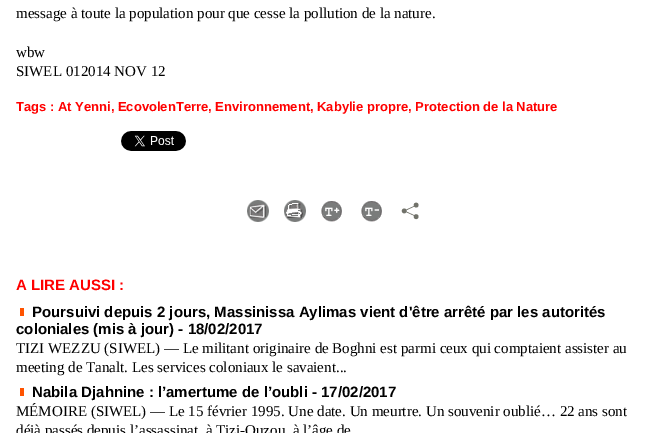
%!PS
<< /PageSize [665 433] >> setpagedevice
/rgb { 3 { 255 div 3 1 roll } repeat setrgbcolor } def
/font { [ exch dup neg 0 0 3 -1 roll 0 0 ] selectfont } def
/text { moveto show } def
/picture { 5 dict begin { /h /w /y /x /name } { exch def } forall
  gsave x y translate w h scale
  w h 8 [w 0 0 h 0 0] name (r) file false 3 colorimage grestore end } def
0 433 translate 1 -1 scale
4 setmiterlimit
255 255 255 rgb
0 0 665 433 rectfill
(img_01.rgb) 121 131 65 20 picture
(img_02.rgb) 247 200 22 22 picture
(img_03.rgb) 284 200 22 22 picture
(img_04.rgb) 321 201 21 21 picture
(img_05.rgb) 361 201 21 21 picture
(img_06.rgb) 401 202 18 18 picture
255 83 0 rgb
20 308 4 8 rectfill
20 388 4 8 rectfill
/LiberationSerif-Regular 15 font
0 0 0 rgb
(message à toute la population pour que cesse la pollution de la nature.) 16 18 text
(wbw) 16 57 text
(SIWEL 012014 NOV 12) 16 76 text
/LiberationSans-Bold 13 font
255 0 0 rgb
(Tags : At Yenni, EcovolenTerre, Environnement, Kabylie propre, Protection de la Nature) 16 111 text
/LiberationSans-Bold 15 font
(A LIRE AUSSI :) 16 290 text
0 0 0 rgb
(Poursuivi depuis 2 jours, Massinissa Aylimas vient d'être arrêté par les autorités) 32 317 text
(coloniales \(mis à jour\) - 18/02/2017) 16 334 text
/LiberationSerif-Regular 15 font
(TIZI WEZZU \(SIWEL\) — Le militant originaire de Boghni est parmi ceux qui comptaient assister au) 16 353 text
(meeting de Tanalt. Les services coloniaux le savaient...) 16 372 text
/LiberationSans-Bold 15 font
(Nabila Djahnine : l’amertume de l’oubli - 17/02/2017) 32 397 text
/LiberationSerif-Regular 15 font
(MÉMOIRE \(SIWEL\) — Le 15 février 1995. Une date. Un meurtre. Un souvenir oublié… 22 ans sont) 16 416 text
(déjà passés depuis l’assassinat, à Tizi-Ouzou, à l’âge de) 16 435 text
showpage
